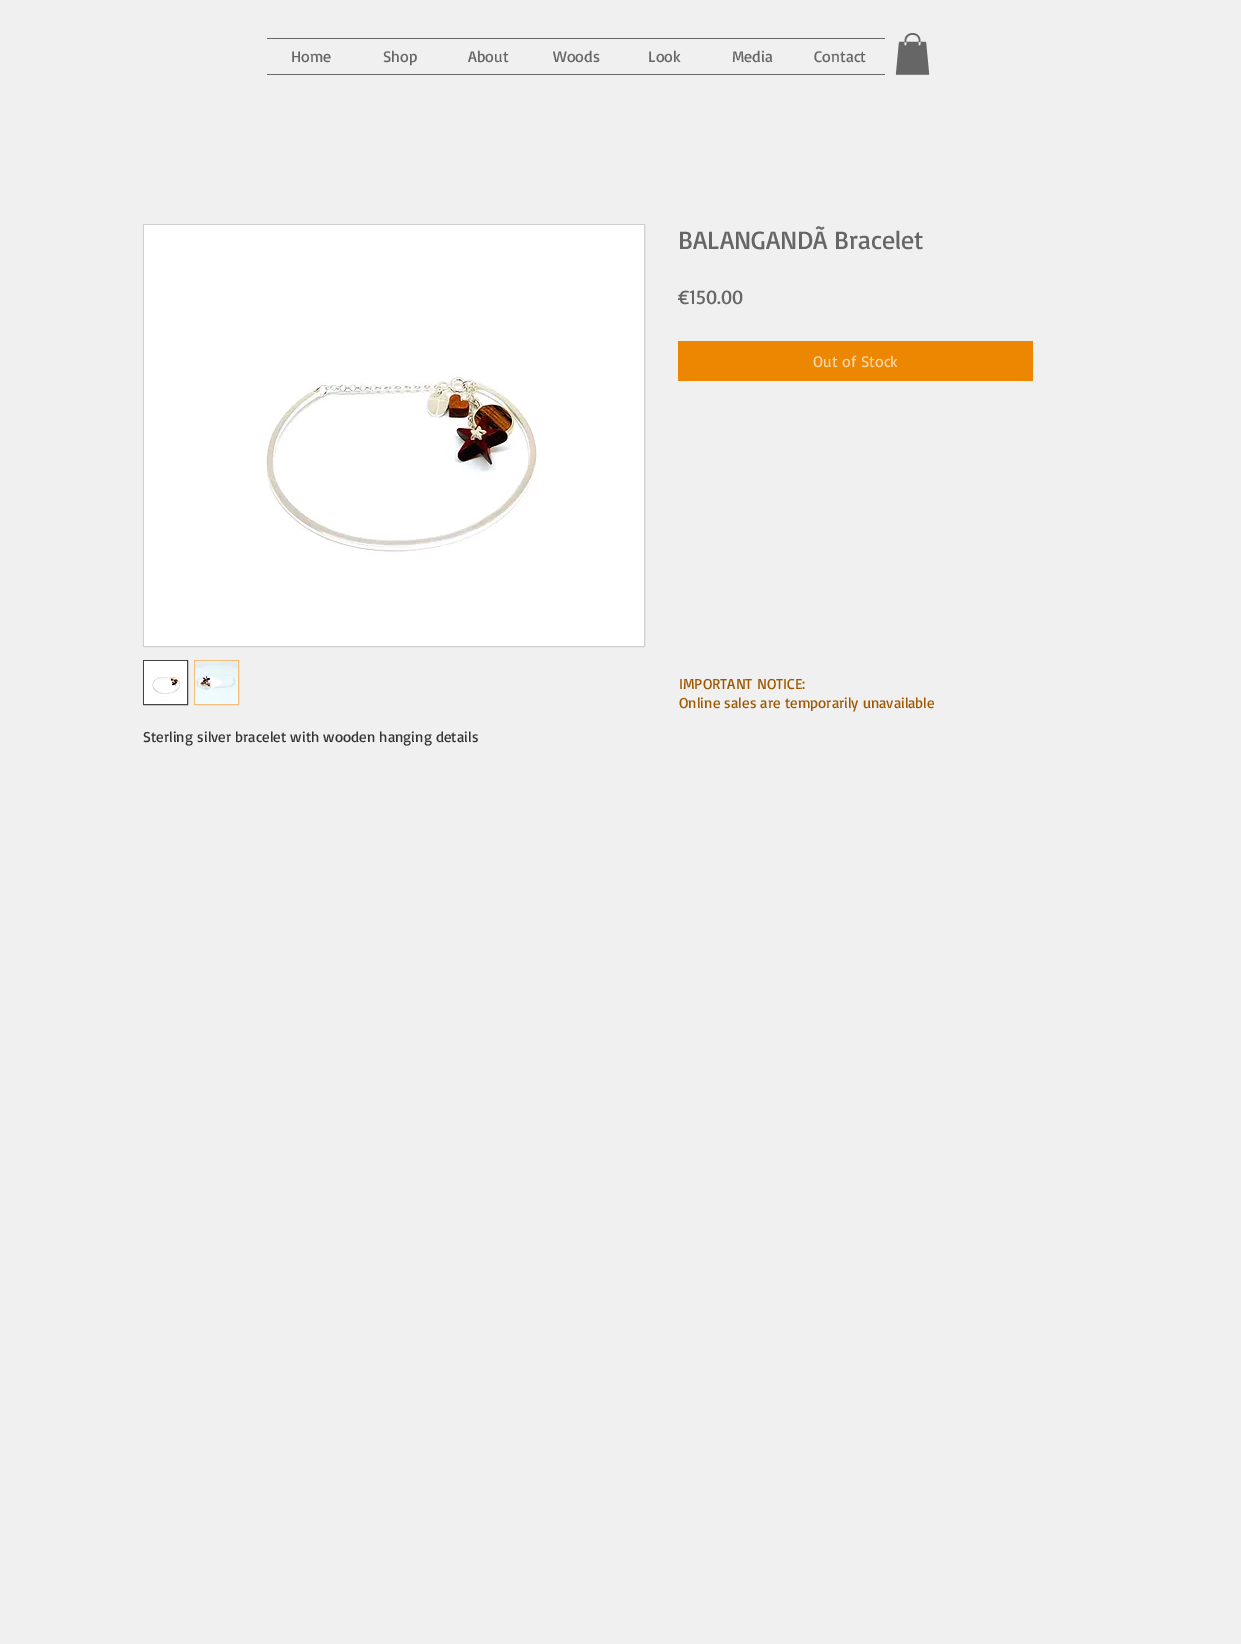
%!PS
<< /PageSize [1241 1644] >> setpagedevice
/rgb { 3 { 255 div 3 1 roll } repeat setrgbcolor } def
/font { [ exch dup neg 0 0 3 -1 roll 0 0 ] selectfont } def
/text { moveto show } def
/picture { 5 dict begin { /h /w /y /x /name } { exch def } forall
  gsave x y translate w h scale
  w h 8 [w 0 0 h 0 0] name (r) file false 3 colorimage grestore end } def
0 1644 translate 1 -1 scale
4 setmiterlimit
240 240 240 rgb
0 0 1241 1644 rectfill
102 102 102 rgb
267 38 618 1 rectfill
267 74 618 1 rectfill
(img_01.rgb) 895 33 35 42 picture
237 134 0 rgb
678 341 355 40 rectfill
207 207 207 rgb
143.5 224.5 501 422 rectstroke
(img_02.rgb) 144 225 500 421 picture
66 66 66 rgb
143.5 660.5 44 44 rectstroke
(img_03.rgb) 144 661 43 43 picture
243 190 121 rgb
194.5 660.5 44 44 rectstroke
(img_04.rgb) 195 661 43 43 picture
255 255 255 rgb
211 676 moveto 0 13 rlineto 12 -6.5 rlineto closepath fill
/Basic-Regular 16 font
102 102 102 rgb
(Home) 291 62 text
(Shop) 383 62 text
(About) 468 62 text
(Woods) 553 62 text
(Look) 648 62 text
(Media) 732 62 text
(Contact) 814 62 text
/Basic-Regular 26 font
(BALANGANDÃ Bracelet) 678 249 text
/Basic-Regular 20 font
(€150.00) 678 304 text
/Basic-Regular 16 font
249 213 166 rgb
(Out of Stock) 813 367 text
/Basic-Regular 15 font
51 51 51 rgb
(Sterling silver bracelet with wooden hanging details) 143 742 text
158 89 0 rgb
(IMPORTANT NOTICE:) 679 689 text
(Online sales are temporarily unavailable) 679 708 text
showpage
